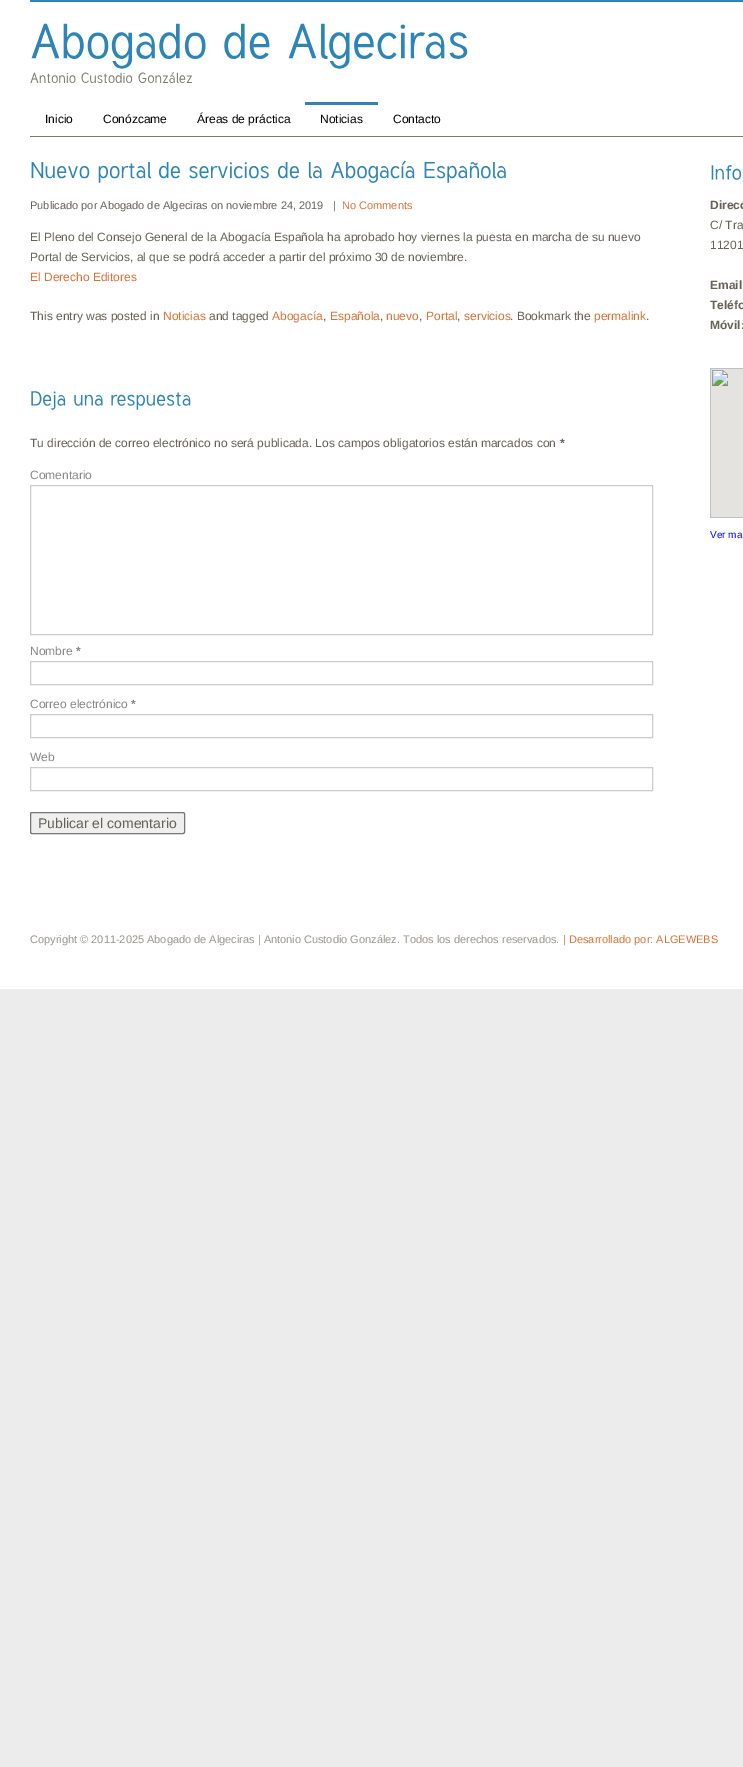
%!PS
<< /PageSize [743 1767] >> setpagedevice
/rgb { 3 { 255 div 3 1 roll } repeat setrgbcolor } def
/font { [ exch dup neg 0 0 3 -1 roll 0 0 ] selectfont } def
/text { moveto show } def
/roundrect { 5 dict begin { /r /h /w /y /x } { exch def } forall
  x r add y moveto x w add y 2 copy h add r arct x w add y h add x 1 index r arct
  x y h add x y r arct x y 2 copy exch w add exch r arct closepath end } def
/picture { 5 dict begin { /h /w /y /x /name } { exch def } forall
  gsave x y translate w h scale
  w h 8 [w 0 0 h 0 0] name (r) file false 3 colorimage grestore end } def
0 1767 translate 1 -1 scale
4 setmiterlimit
235 236 235 rgb
0 0 743 1767 rectfill
255 255 255 rgb
0 0 743 989 rectfill
45 132 182 rgb
30 0 713 2 rectfill
(img_01.rgb) 31 23 175 46 picture
(img_02.rgb) 224 23 46 36 picture
(img_03.rgb) 288 23 180 46 picture
(img_04.rgb) 30 72 46 11 picture
(img_05.rgb) 81 72 52 11 picture
(img_06.rgb) 138 72 54 11 picture
124 122 107 rgb
30 136 713 1 rectfill
45 132 182 rgb
305 102 73 3 rectfill
(img_07.rgb) 31 162 59 17 picture
(img_08.rgb) 98 162 54 21 picture
(img_09.rgb) 158 162 22 17 picture
(img_10.rgb) 189 162 80 17 picture
(img_09.rgb) 277 162 22 17 picture
(img_11.rgb) 308 162 14 17 picture
(img_12.rgb) 331 160 84 23 picture
(img_13.rgb) 424 162 82 21 picture
(img_14.rgb) 31 391 35 19 picture
(img_15.rgb) 74 394 29 12 picture
(img_16.rgb) 111 392 80 18 picture
204 204 204 rgb
30.5 485.5 622 149 rectstroke
30.5 661.5 622 23 rectstroke
30.5 714.5 622 23 rectstroke
30.5 767.5 622 23 rectstroke
239 239 239 rgb
30.5 812.5 154 21 1.5 roundrect gsave fill grestore
118 118 118 rgb
stroke
(img_17.rgb) 711 165 31 15 picture
(img_18.rgb) 710 368 33 150 picture
/LiberationSans-Regular 12 font
0 0 0 rgb
(Inicio) 45 123 text
(Conózcame) 103 123 text
(Áreas de práctica) 197 123 text
(Noticias) 320 123 text
(Contacto) 393 123 text
/LiberationSans-Regular 11 font
101 98 83 rgb
(Publicado por Abogado de Algeciras on noviembre 24, 2019) 30 209 text
(|) 333 209 text
223 112 52 rgb
(No Comments) 342 209 text
/LiberationSans-Regular 12 font
101 98 83 rgb
(El Pleno del Consejo General de la Abogacía Española ha aprobado hoy viernes la puesta en marcha de su nuevo) 30 241 text
(Portal de Servicios, al que se podrá acceder a partir del próximo 30 de noviembre.) 30 261 text
223 112 52 rgb
(El Derecho Editores) 30 281 text
101 98 83 rgb
(This entry was posted in) 30 320 text
223 112 52 rgb
(Noticias) 163 320 text
101 98 83 rgb
(and tagged) 209 320 text
223 112 52 rgb
(Abogacía) 272 320 text
101 98 83 rgb
(,) 323 320 text
223 112 52 rgb
(Española) 330 320 text
101 98 83 rgb
(,) 380 320 text
223 112 52 rgb
(nuevo) 386 320 text
101 98 83 rgb
(,) 419 320 text
223 112 52 rgb
(Portal) 426 320 text
101 98 83 rgb
(,) 457 320 text
223 112 52 rgb
(servicios) 464 320 text
101 98 83 rgb
(. Bookmark the) 510 320 text
223 112 52 rgb
(permalink) 594 320 text
101 98 83 rgb
(.) 646 320 text
(Tu dirección de correo electrónico no será publicada. Los campos obligatorios están marcados con) 30 447 text
/LiberationSans-Bold 12 font
(*) 560 447 text
/LiberationSans-Regular 12 font
136 136 136 rgb
(Comentario) 30 479 text
(Nombre) 30 655 text
/LiberationSans-Bold 12 font
(*) 76 655 text
/LiberationSans-Regular 12 font
(Correo electrónico) 30 708 text
/LiberationSans-Bold 12 font
(*) 131 708 text
/LiberationSans-Regular 12 font
(Web) 30 761 text
/LiberationSans-Regular 14 font
101 98 83 rgb
(Publicar el comentario) 38 828 text
/LiberationSans-Bold 12 font
(Direcc) 710 209 text
/LiberationSans-Regular 12 font
(C/ Tra) 710 229 text
(11201) 710 249 text
/LiberationSans-Bold 12 font
(Email) 710 289 text
(Teléfo) 710 309 text
(Móvil:) 710 329 text
/LiberationSans-Regular 10 font
0 0 255 rgb
(Ver ma) 710 538 text
/LiberationSans-Regular 11 font
153 150 137 rgb
(Copyright © 2011-2025 Abogado de Algeciras | Antonio Custodio González. Todos los derechos reservados.) 30 943 text
223 112 52 rgb
(| Desarrollado por: ALGEWEBS) 563 943 text
showpage
